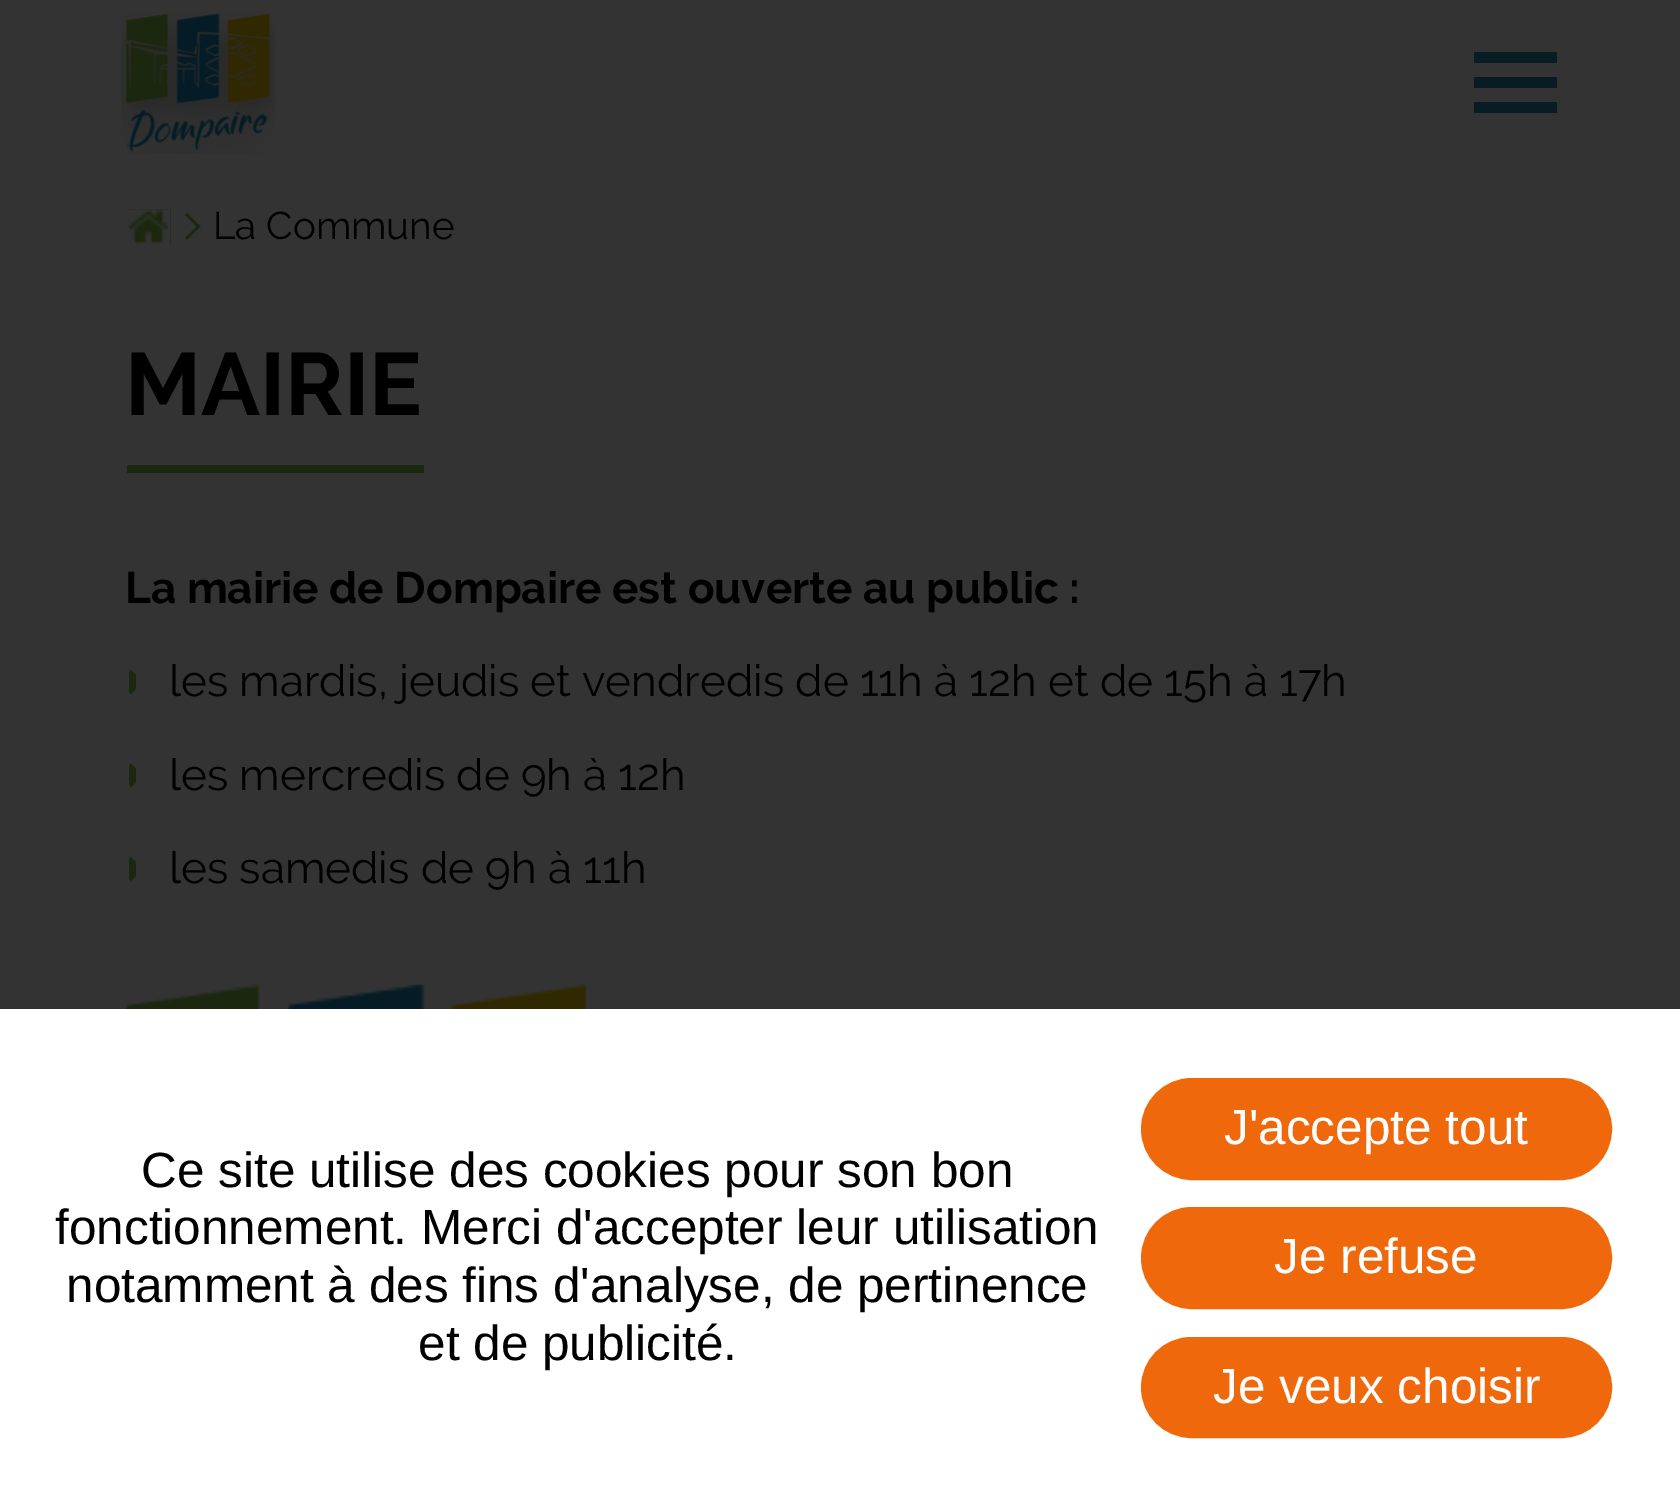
%!PS
<< /PageSize [1680 1505] >> setpagedevice
/rgb { 3 { 255 div 3 1 roll } repeat setrgbcolor } def
/font { [ exch dup neg 0 0 3 -1 roll 0 0 ] selectfont } def
/text { moveto show } def
/roundrect { 5 dict begin { /r /h /w /y /x } { exch def } forall
  x r add y moveto x w add y 2 copy h add r arct x w add y h add x 1 index r arct
  x y h add x y r arct x y 2 copy exch w add exch r arct closepath end } def
/picture { 5 dict begin { /h /w /y /x /name } { exch def } forall
  gsave x y translate w h scale
  w h 8 [w 0 0 h 0 0] name (r) file false 3 colorimage grestore end } def
0 1505 translate 1 -1 scale
4 setmiterlimit
51 51 51 rgb
0 0 1680 1505 rectfill
(img_01.rgb) 121 13 154 141 picture
8 28 36 rgb
1474 52 83 11 rectfill
1474 77 83 11 rectfill
1474 102 83 11 rectfill
28 39 15 rgb
127 209 44 36 rectfill
(img_02.rgb) 127 209 44 36 picture
187 213 moveto 13.5 13.5 rlineto -2 2 rlineto -13.5 -13.5 rlineto closepath fill
198.5 224.5 moveto 2 2 rlineto -13.5 13.5 rlineto -2 -2 rlineto closepath fill
127 465 297 8 rectfill
129 673 moveto 0.5 -1.5 1 -2.5 1.5 -3.5 rcurveto 5.5 5.5 rlineto 0 14 rlineto -5 5 rlineto -1 -0.5 -1.5 -2 -2 -3 rcurveto closepath fill
131 763.5 moveto 5 5 rlineto 0 14 rlineto -5 5 rlineto -1 -0.5 -1.5 -2 -2 -3 rcurveto 0 -17.5 rlineto 0.5 -1.5 1 -2.5 2 -3.5 rcurveto closepath fill
129 860 moveto 0.5 -1.5 1 -2.5 1.5 -3.5 rcurveto 5.5 5.5 rlineto 0 14 rlineto -5 5 rlineto -1 -0.5 -1.5 -2 -2 -3 rcurveto closepath fill
(img_03.rgb) 126 984 460 25 picture
255 255 255 rgb
0 1009 1680 496 rectfill
239 104 12 rgb
1144 1081 465 96 48 roundrect gsave fill grestore
6 setlinewidth
stroke
1144 1210 465 96 48 roundrect gsave fill grestore
stroke
1144 1340 465 95 47.5 roundrect gsave fill grestore
stroke
/Raleway-Regular 38.5 font
0 0 0 rgb
(La Commune) 213 239 text
/Raleway-Bold 88 font
(MAIRIE) 125 415 text
/Raleway-Bold 44 font
(La mairie de Dompaire est ouverte au public :) 125 603 text
/Raleway-Regular 44 font
(les mardis, jeudis et vendredis de 11h à 12h et de 15h à 17h) 169 696 text
(les mercredis de 9h à 12h) 169 790 text
(les samedis de 9h à 11h) 169 883 text
/LiberationSans-Regular 49.5 font
(Ce site utilise des cookies pour son bon) 141 1187 text
(fonctionnement. Merci d'accepter leur utilisation) 55 1244 text
(notamment à des fins d'analyse, de pertinence) 66 1302 text
(et de publicité.) 418 1360 text
255 255 255 rgb
(J'accepte tout) 1224 1144 text
(Je refuse) 1274 1273 text
(Je veux choisir) 1213 1403 text
showpage
